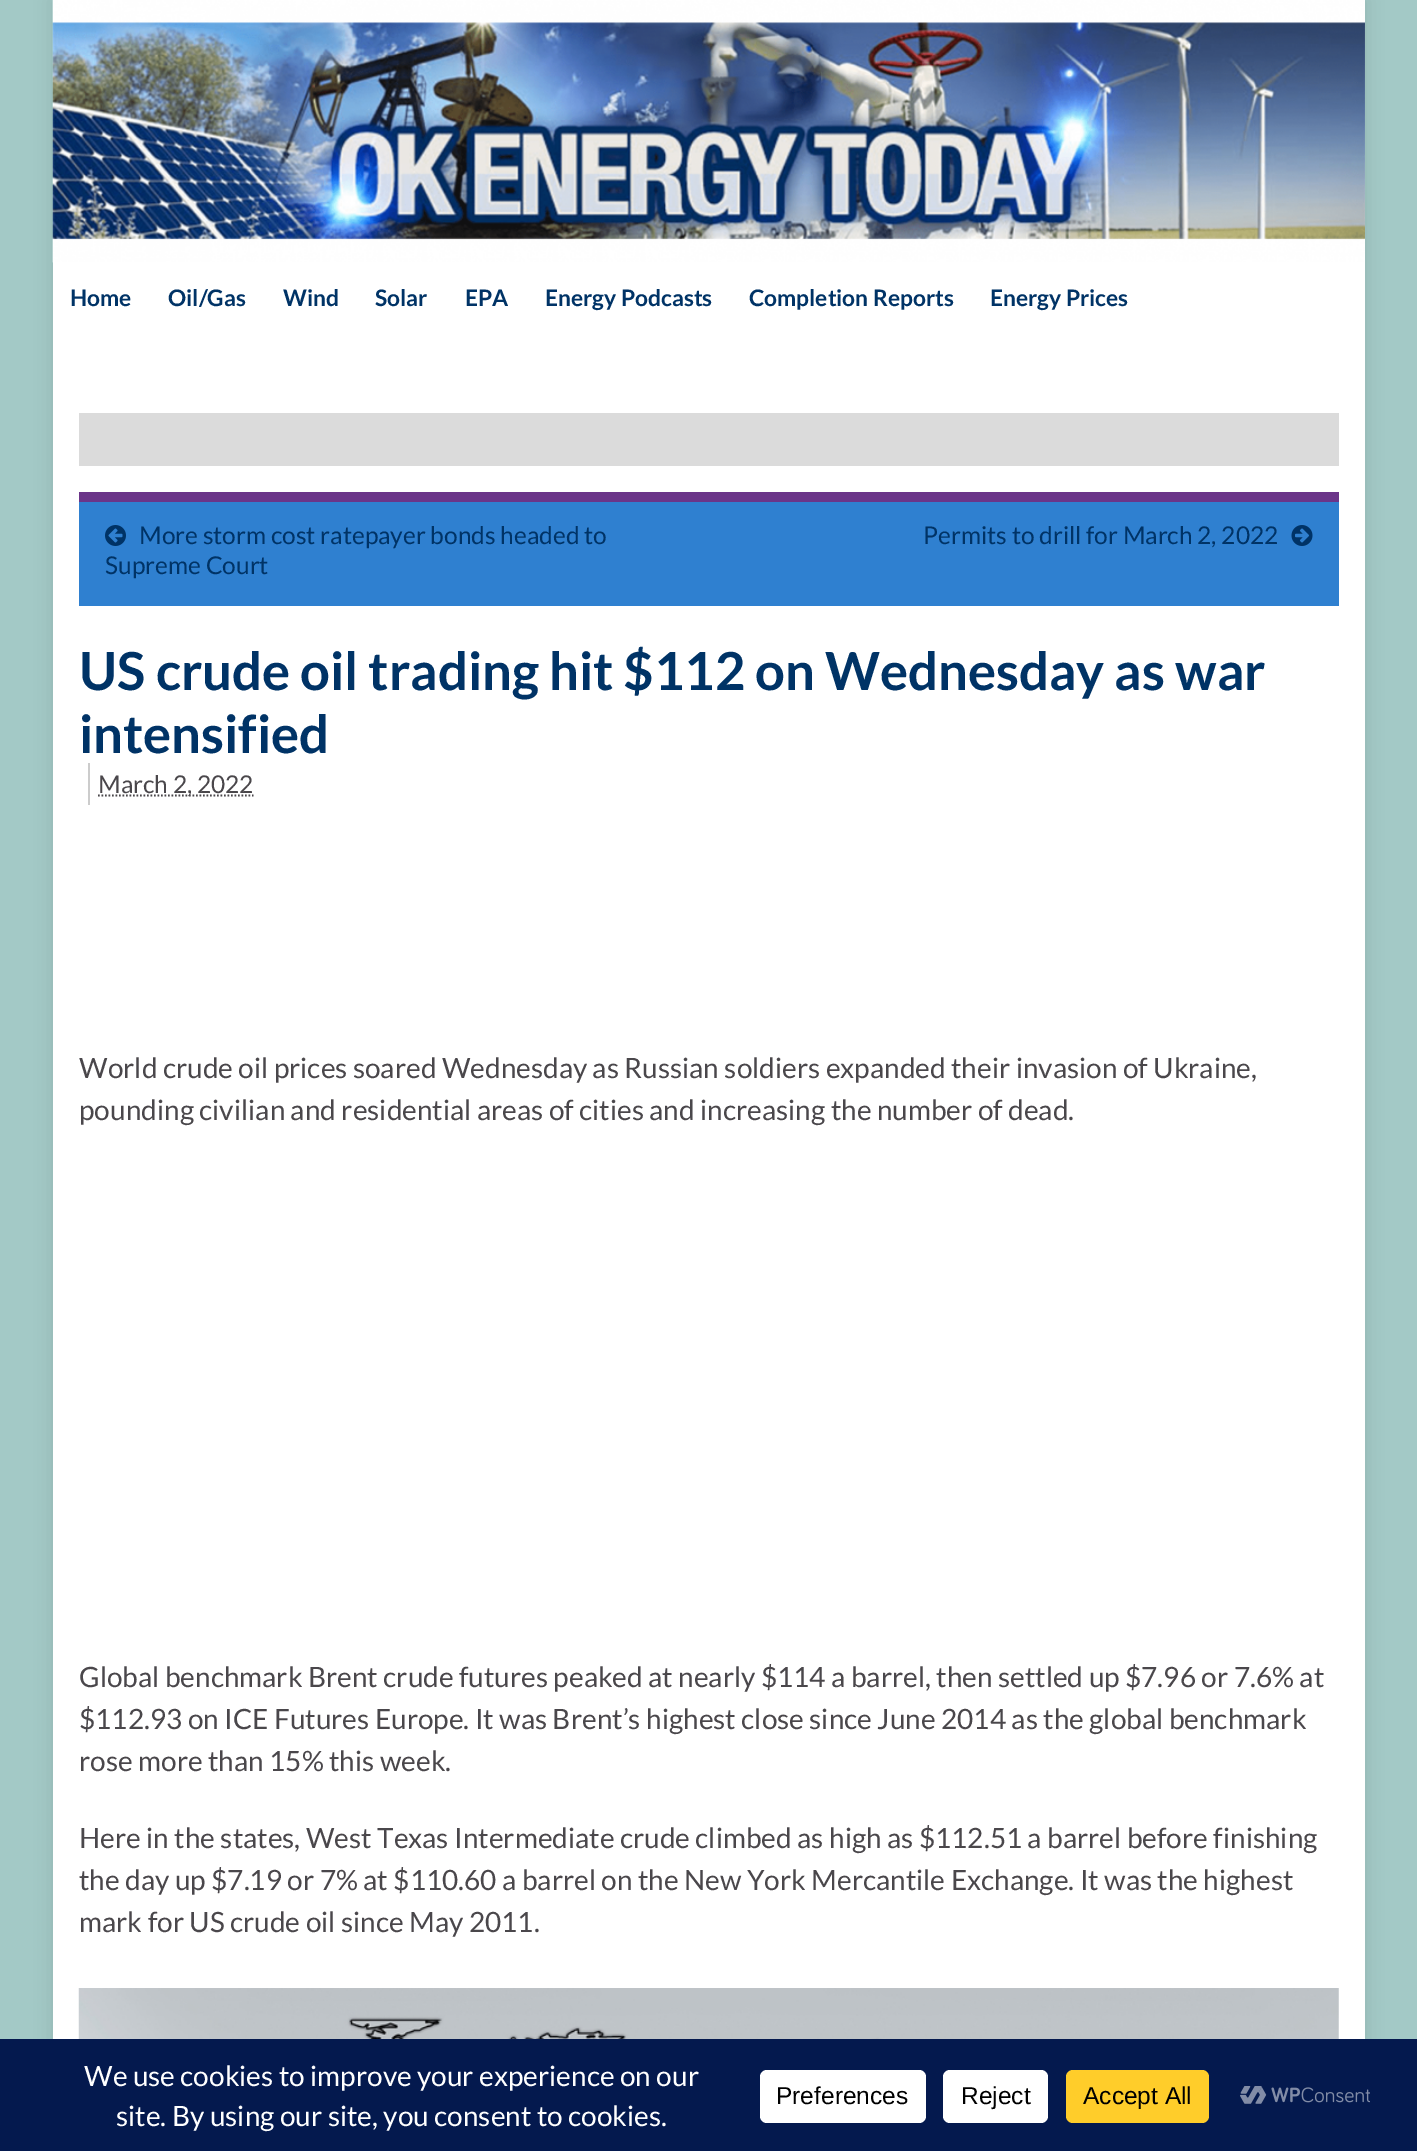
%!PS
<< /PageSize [1417 2151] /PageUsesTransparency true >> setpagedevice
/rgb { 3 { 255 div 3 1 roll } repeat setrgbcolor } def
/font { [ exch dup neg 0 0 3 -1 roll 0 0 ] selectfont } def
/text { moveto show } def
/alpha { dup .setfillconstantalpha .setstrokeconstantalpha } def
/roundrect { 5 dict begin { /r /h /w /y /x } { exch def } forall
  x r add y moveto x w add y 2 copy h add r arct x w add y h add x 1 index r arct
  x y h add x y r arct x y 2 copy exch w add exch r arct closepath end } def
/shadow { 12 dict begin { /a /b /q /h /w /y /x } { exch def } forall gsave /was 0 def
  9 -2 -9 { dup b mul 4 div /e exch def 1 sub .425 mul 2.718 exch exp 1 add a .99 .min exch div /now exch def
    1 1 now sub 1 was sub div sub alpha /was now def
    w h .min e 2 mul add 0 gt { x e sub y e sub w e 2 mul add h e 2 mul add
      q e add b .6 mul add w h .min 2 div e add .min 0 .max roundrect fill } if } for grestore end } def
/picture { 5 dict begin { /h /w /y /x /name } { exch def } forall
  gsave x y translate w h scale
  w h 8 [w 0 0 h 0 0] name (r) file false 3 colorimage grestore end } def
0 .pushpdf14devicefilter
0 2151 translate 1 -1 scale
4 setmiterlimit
163 201 198 rgb
0 0 1417 2151 rectfill
0 0 0 rgb
53 0 1312 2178 0 9 0.1 shadow
255 255 255 rgb
53 262 1312 1777 rectfill
(img_01.rgb) 52 0 1313 263 picture
219 219 219 rgb
79 413 1260 53 rectfill
47 128 208 rgb
79 502 1260 104 rectfill
107 53 137 rgb
79 492 1260 10 rectfill
(img_02.rgb) 105 525 21 21 picture
(img_03.rgb) 1291 525 22 21 picture
204 204 204 rgb
88 763 2 42 rectfill
74 71 75 rgb
1.8 setlinewidth
[1.75 1.75] 0 setdash
98 795.5 moveto 155.5 0 rlineto stroke
(img_04.rgb) 78 1988 1261 51 picture
4 25 78 rgb
0 2039 1417 112 rectfill
255 255 255 rgb
760 2070 166 53 7 roundrect fill
943 2070 105 53 7 roundrect fill
255 205 42 rgb
1066 2070 143 53 7 roundrect fill
(img_05.rgb) 1240 2086 130 18 picture
/Lato-Bold 22.75 font
0 51 102 rgb
(Home) 70 306 text
(Oil/Gas) 168 306 text
(Wind) 283 306 text
(Solar) 375 306 text
(EPA) 465 306 text
(Energy Podcasts) 545 306 text
(Completion Reports) 749 306 text
(Energy Prices) 990 306 text
/Lato-Regular 24.5 font
(More storm cost ratepayer bonds headed to) 139 544 text
(Supreme Court) 105 574 text
(Permits to drill for March 2, 2022) 923 544 text
/Lato-Bold 52.5 font
(US crude oil trading hit $112 on Wednesday as war) 79 690 text
(intensified) 79 753 text
/Lato-Regular 24.5 font
74 71 75 rgb
(March 2, 2022) 98 793 text
/Lato-Regular 28 font
(World crude oil prices soared Wednesday as Russian soldiers expanded their invasion of Ukraine,) 79 1078 text
(pounding civilian and residential areas of cities and increasing the number of dead.) 79 1120 text
(Global benchmark Brent crude futures peaked at nearly $114 a barrel, then settled up $7.96 or 7.6% at) 79 1687 text
($112.93 on ICE Futures Europe. It was Brent’s highest close since June 2014 as the global benchmark) 79 1729 text
(rose more than 15% this week.) 79 1771 text
(Here in the states, West Texas Intermediate crude climbed as high as $112.51 a barrel before finishing) 79 1848 text
(the day up $7.19 or 7% at $110.60 a barrel on the New York Mercantile Exchange. It was the highest) 79 1890 text
(mark for US crude oil since May 2011.) 79 1932 text
255 255 255 rgb
(We use cookies to improve your experience on our) 84 2086 text
(site. By using our site, you consent to cookies.) 116 2126 text
/LiberationSans-Regular 24.5 font
0 0 0 rgb
(Preferences) 776 2104 text
(Reject) 961 2104 text
(Accept All) 1083 2104 text
.poppdf14devicefilter showpage
